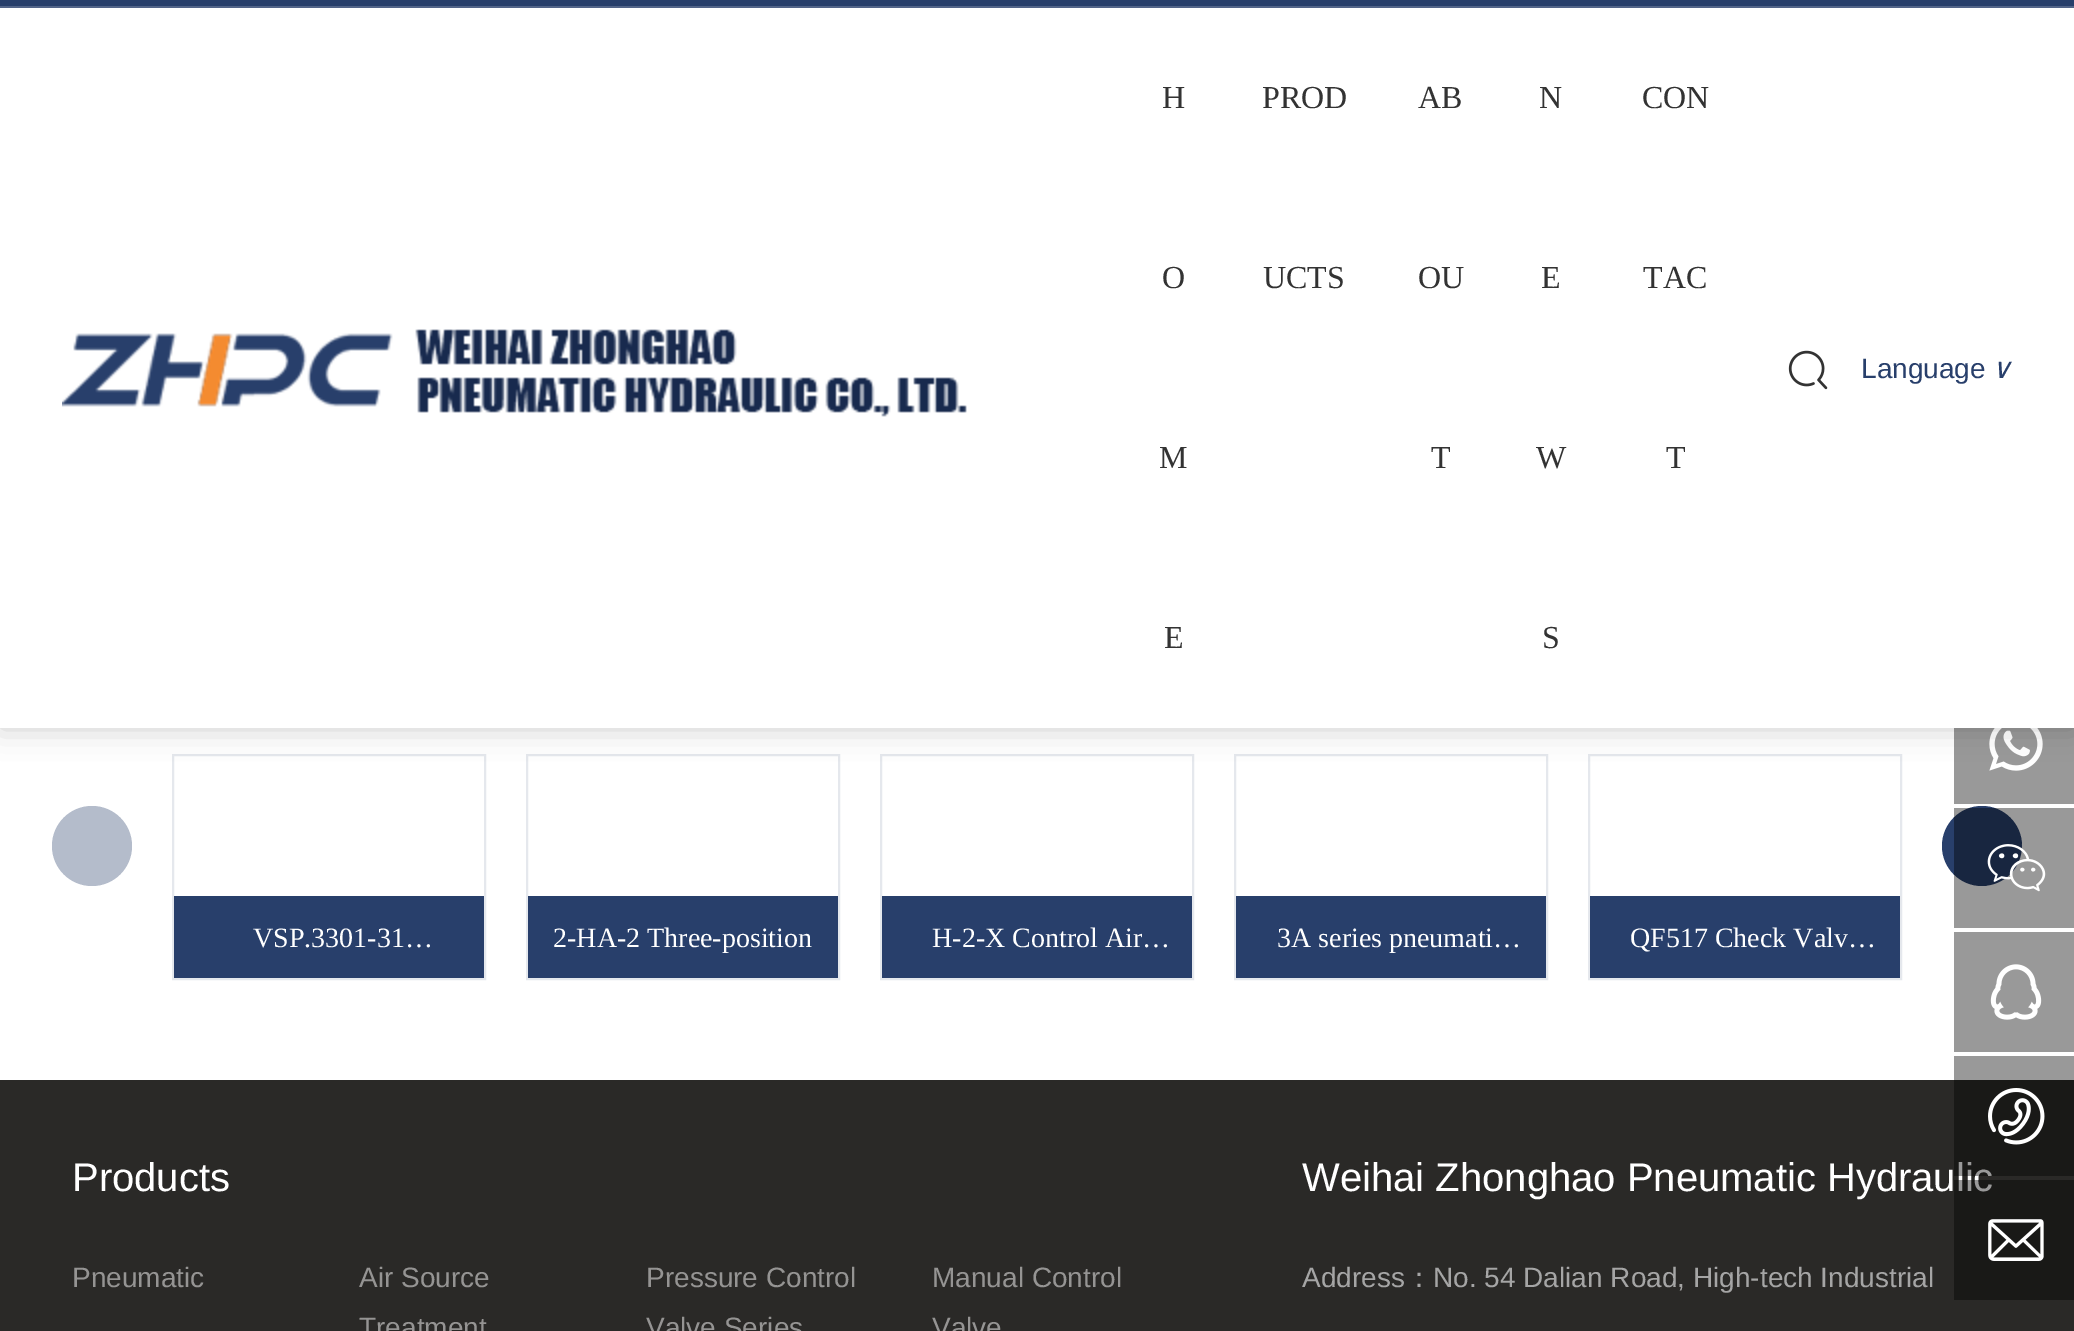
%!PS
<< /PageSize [2074 1331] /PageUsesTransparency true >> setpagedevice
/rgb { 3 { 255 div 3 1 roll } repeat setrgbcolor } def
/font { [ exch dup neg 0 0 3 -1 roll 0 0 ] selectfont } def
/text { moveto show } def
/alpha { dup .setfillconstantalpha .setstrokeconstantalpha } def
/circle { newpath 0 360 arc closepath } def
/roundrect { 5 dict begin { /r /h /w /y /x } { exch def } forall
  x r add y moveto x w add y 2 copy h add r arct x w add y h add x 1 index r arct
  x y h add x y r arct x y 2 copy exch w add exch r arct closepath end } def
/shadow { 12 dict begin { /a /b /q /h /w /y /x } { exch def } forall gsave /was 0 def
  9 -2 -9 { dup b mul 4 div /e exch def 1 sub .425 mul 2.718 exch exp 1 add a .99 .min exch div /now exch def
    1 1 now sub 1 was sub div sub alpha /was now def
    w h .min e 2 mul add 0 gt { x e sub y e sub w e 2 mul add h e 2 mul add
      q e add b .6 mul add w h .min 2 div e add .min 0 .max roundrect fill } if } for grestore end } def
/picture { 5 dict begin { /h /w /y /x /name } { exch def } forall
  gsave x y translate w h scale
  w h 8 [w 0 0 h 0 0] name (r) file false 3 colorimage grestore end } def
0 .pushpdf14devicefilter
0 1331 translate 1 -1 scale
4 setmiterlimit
255 255 255 rgb
0 0 2074 1331 rectfill
229 232 237 rgb
2 setlinewidth
173 755 312 224 rectstroke
527 755 312 224 rectstroke
881 755 312 224 rectstroke
1235 755 312 224 rectstroke
1589 755 312 224 rectstroke
153 153 153 rgb
1954 728 120 76 rectfill
(img_03.rgb) 1989 728 54 43 picture
0 0 0 rgb
0 0 2074 728 0 15 0.2 shadow
255 255 255 rgb
0 8 2074 720 rectfill
40 63 107 rgb
0 0 2074 6 rectfill
83 101 137 rgb
0 6 2074 2 rectfill
(img_01.rgb) 62 329 905 88 picture
(img_02.rgb) 1788 350 40 40 picture
180 188 203 rgb
92 846 40 circle fill
40 63 107 rgb
1982 846 40 circle fill
174 896 310 82 rectfill
528 896 310 82 rectfill
882 896 310 82 rectfill
1236 896 310 82 rectfill
1590 896 310 82 rectfill
42 41 39 rgb
0 1080 2074 251 rectfill
0.4 alpha
0 0 0 rgb
1954 808 120 120 rectfill
1 alpha
(img_04.rgb) 1987 844 59 48 picture
153 153 153 rgb
1954 932 120 120 rectfill
(img_05.rgb) 1990 964 52 56 picture
/LiberationSerif-Regular 32 font
51 51 51 rgb
(H) 1162 108 text
(O) 1162 288 text
(M) 1159 468 text
(E) 1164 648 text
(PROD) 1262 108 text
(UCTS) 1263 288 text
(AB) 1418 108 text
(OU) 1418 288 text
(T) 1431 468 text
(N) 1539 108 text
(E) 1541 288 text
(W) 1536 468 text
(S) 1542 648 text
(CON) 1642 108 text
(TAC) 1643 288 text
(T) 1666 468 text
/LiberationSans-Regular 28 font
40 63 107 rgb
(Language) 1861 378 text
/DejaVuSans-Italic 28 font
(∨) 1991 378 text
/LiberationSerif-Regular 28 font
255 255 255 rgb
(VSP.3301-31…) 253 947 text
(2-HA-2 Three-position) 553 947 text
(H-2-X Control Air…) 932 947 text
(3A series pneumati…) 1277 947 text
(QF517 Check Valv…) 1630 947 text
/LiberationSans-Regular 40 font
(Products) 72 1191 text
/LiberationSans-Regular 28 font
149 148 147 rgb
(Pneumatic) 72 1287 text
(Air Source) 359 1287 text
(Treatment) 359 1337 text
(Pressure Control) 646 1287 text
(Valve Series) 646 1337 text
(Manual Control) 932 1287 text
(Valve) 932 1337 text
/LiberationSans-Regular 40 font
255 255 255 rgb
(Weihai Zhonghao Pneumatic Hydraulic) 1302 1191 text
/LiberationSans-Regular 28 font
165 165 165 rgb
(Address) 1302 1287 text
/WenQuanYiZenHei-Medium 28 font
(：) 1405 1287 text
/LiberationSans-Regular 28 font
(No. 54 Dalian Road, High-tech Industrial) 1433 1287 text
0.4 alpha
0 0 0 rgb
1954 1056 120 120 rectfill
1 alpha
(img_06.rgb) 1988 1088 57 57 picture
0.4 alpha
1954 1180 120 120 rectfill
1 alpha
(img_07.rgb) 1988 1219 56 42 picture
.poppdf14devicefilter showpage
